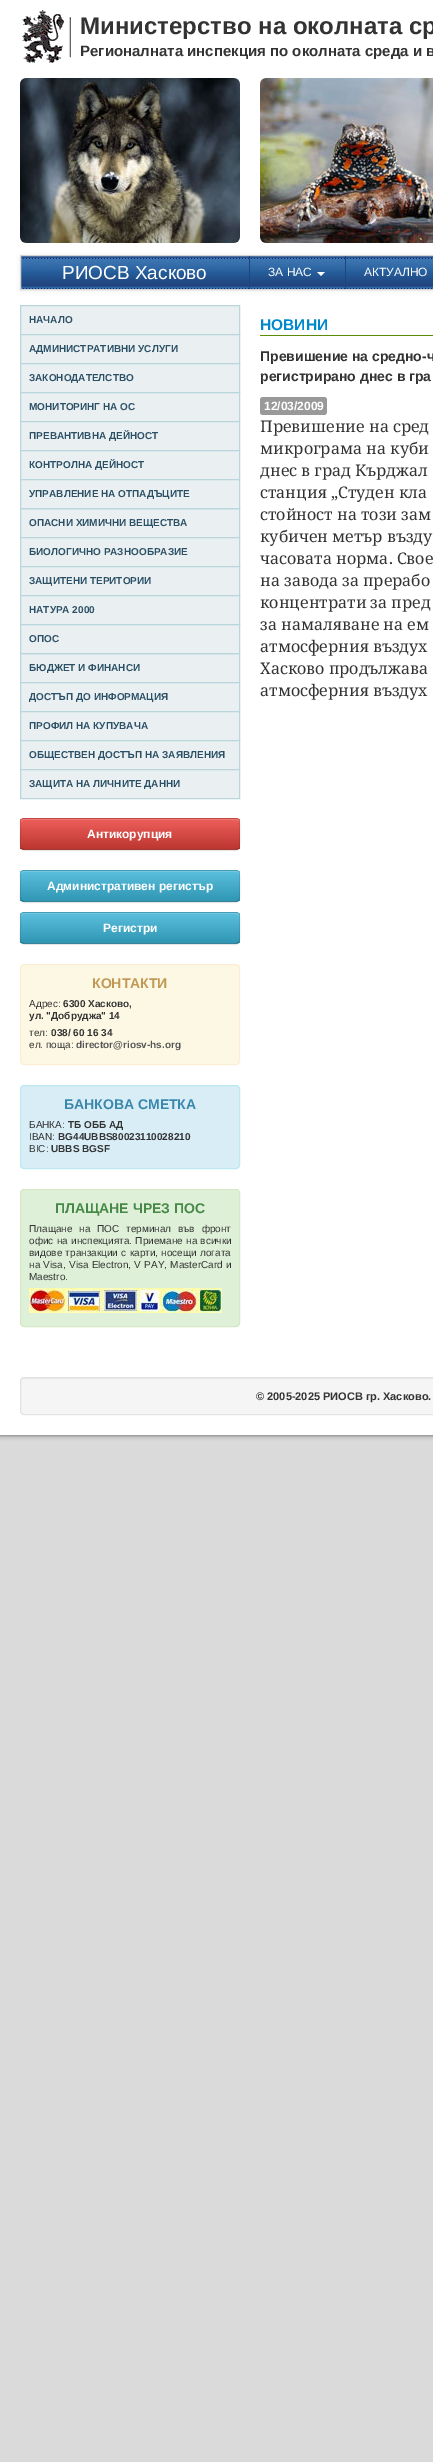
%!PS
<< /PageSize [433 2462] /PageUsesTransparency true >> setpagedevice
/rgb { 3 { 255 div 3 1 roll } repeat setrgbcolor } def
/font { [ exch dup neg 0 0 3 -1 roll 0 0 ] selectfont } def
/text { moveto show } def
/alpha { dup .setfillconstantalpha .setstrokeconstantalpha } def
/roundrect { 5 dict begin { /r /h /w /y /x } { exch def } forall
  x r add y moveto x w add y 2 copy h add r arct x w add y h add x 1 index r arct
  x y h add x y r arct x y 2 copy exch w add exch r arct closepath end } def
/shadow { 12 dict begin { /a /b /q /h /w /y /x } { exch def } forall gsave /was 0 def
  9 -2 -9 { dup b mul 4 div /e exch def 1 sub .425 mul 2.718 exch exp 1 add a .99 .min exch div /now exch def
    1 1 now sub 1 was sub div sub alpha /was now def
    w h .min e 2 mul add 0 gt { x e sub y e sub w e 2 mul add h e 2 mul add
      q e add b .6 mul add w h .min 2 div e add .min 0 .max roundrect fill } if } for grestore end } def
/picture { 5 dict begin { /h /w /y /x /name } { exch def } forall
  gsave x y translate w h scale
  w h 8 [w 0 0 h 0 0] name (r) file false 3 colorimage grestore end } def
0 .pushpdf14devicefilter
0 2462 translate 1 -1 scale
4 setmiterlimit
218 218 218 rgb
0 0 433 2462 rectfill
85 85 85 rgb
0 0 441 1435 0 2.5 1 shadow
255 255 255 rgb
0 0 433 1435 rectfill
(img_01.rgb) 22 10 49 53 picture
(img_02.rgb) 20 78 220 165 picture
(img_03.rgb) 260 78 173 165 picture
0 0 0 rgb
20 256 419 35 0 2 0.07 shadow
(img_04.rgb) 21 256 412 33 picture
212 212 212 rgb
20.5 255.5 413 34 rectstroke
33 68 126 rgb
345 256 1 33 rectfill
249 256 1 33 rectfill
255 255 255 rgb
317 272 moveto 8 0 rlineto -4 4 rlineto closepath fill
234 239 242 rgb
20.5 305.5 moveto 219 0 rlineto 0 29 rlineto -219 0 rlineto closepath gsave fill grestore
185 214 220 rgb
stroke
234 239 242 rgb
20.5 334.5 moveto 219 0 rlineto 0 29 rlineto -219 0 rlineto closepath gsave fill grestore
185 214 220 rgb
stroke
234 239 242 rgb
20.5 363.5 moveto 219 0 rlineto 0 29 rlineto -219 0 rlineto closepath gsave fill grestore
185 214 220 rgb
stroke
234 239 242 rgb
20.5 392.5 moveto 219 0 rlineto 0 29 rlineto -219 0 rlineto closepath gsave fill grestore
185 214 220 rgb
stroke
234 239 242 rgb
20.5 421.5 moveto 219 0 rlineto 0 29 rlineto -219 0 rlineto closepath gsave fill grestore
185 214 220 rgb
stroke
234 239 242 rgb
20.5 450.5 moveto 219 0 rlineto 0 29 rlineto -219 0 rlineto closepath gsave fill grestore
185 214 220 rgb
stroke
234 239 242 rgb
20.5 508.5 moveto 219 0 rlineto 0 29 rlineto -219 0 rlineto closepath gsave fill grestore
185 214 220 rgb
stroke
234 239 242 rgb
20.5 479.5 moveto 219 0 rlineto 0 29 rlineto -219 0 rlineto closepath gsave fill grestore
185 214 220 rgb
stroke
234 239 242 rgb
20.5 537.5 moveto 219 0 rlineto 0 29 rlineto -219 0 rlineto closepath gsave fill grestore
185 214 220 rgb
stroke
234 239 242 rgb
20.5 566.5 moveto 219 0 rlineto 0 29 rlineto -219 0 rlineto closepath gsave fill grestore
185 214 220 rgb
stroke
234 239 242 rgb
20.5 595.5 moveto 219 0 rlineto 0 29 rlineto -219 0 rlineto closepath gsave fill grestore
185 214 220 rgb
stroke
234 239 242 rgb
20.5 653.5 moveto 219 0 rlineto 0 29 rlineto -219 0 rlineto closepath gsave fill grestore
185 214 220 rgb
stroke
234 239 242 rgb
20.5 624.5 moveto 219 0 rlineto 0 29 rlineto -219 0 rlineto closepath gsave fill grestore
185 214 220 rgb
stroke
234 239 242 rgb
20.5 682.5 moveto 219 0 rlineto 0 29 rlineto -219 0 rlineto closepath gsave fill grestore
185 214 220 rgb
stroke
234 239 242 rgb
20.5 711.5 moveto 219 0 rlineto 0 29 rlineto -219 0 rlineto closepath gsave fill grestore
185 214 220 rgb
stroke
234 239 242 rgb
20.5 740.5 moveto 219 0 rlineto 0 29 rlineto -219 0 rlineto closepath gsave fill grestore
185 214 220 rgb
stroke
234 239 242 rgb
20.5 769.5 moveto 219 0 rlineto 0 29 rlineto -219 0 rlineto closepath gsave fill grestore
185 214 220 rgb
stroke
0 0 0 rgb
20 819 220 32 4 1 0.05 shadow
218 79 73 rgb
20 818 220 32 4 roundrect fill
gsave
20 818 220 32 4 roundrect clip newpath
gsave 20 819 moveto 220 0 rlineto 0 30 rlineto -220 0 rlineto closepath clip newpath
<< /ShadingType 2 /ColorSpace /DeviceRGB /Coords [130 819 130 849] /Extend [true true] /Function << /FunctionType 2 /Domain [0 1] /C0 [0.933 0.373 0.357] /C1 [0.741 0.212 0.184] /N 1 >> >> shfill grestore
grestore
241 126 123 rgb
24 820 moveto 212 0 rlineto 2 0 3 1 3 3 rcurveto 0 -1 rlineto 0 -2 -1 -3 -3 -3 rcurveto -212 0 rlineto -2 0 -3 1 -3 3 rcurveto 0 1 rlineto 0 -2 1 -3 3 -3 rcurveto closepath fill
0.25 alpha
0 0 0 rgb
238.5 848.5 moveto -0.5 0.5 -1.5 1 -2.5 1 rcurveto -212 0 rlineto -1 0 -2 -0.5 -2.5 -1 rcurveto stroke
0.1 alpha
21.5 848.5 moveto -2 -2.5 -1 -11.5 -1 -14.5 rcurveto 0 -8 rlineto 0 -2.5 -0.5 -7.5 3.5 -7.5 rcurveto 212 0 rlineto 4 0 3.5 5 3.5 7.5 rcurveto 0 8 rlineto 0 3 1 12 -1 14.5 rcurveto stroke
1 alpha
20 871 220 32 4 1 0.05 shadow
73 175 205 rgb
20 870 220 32 4 roundrect fill
gsave
20 870 220 32 4 roundrect clip newpath
gsave 20 871 moveto 220 0 rlineto 0 30 rlineto -220 0 rlineto closepath clip newpath
<< /ShadingType 2 /ColorSpace /DeviceRGB /Coords [130 871 130 901] /Extend [true true] /Function << /FunctionType 2 /Domain [0 1] /C0 [0.357 0.753 0.871] /C1 [0.184 0.588 0.706] /N 1 >> >> shfill grestore
grestore
123 204 228 rgb
24 872 moveto 212 0 rlineto 2 0 3 1 3 3 rcurveto 0 -1 rlineto 0 -2 -1 -3 -3 -3 rcurveto -212 0 rlineto -2 0 -3 1 -3 3 rcurveto 0 1 rlineto 0 -2 1 -3 3 -3 rcurveto closepath fill
0.25 alpha
0 0 0 rgb
238.5 900.5 moveto -0.5 0.5 -1.5 1 -2.5 1 rcurveto -212 0 rlineto -1 0 -2 -0.5 -2.5 -1 rcurveto stroke
0.1 alpha
21.5 900.5 moveto -2 -2.5 -1 -11.5 -1 -14.5 rcurveto 0 -8 rlineto 0 -2.5 -0.5 -7.5 3.5 -7.5 rcurveto 212 0 rlineto 4 0 3.5 5 3.5 7.5 rcurveto 0 8 rlineto 0 3 1 12 -1 14.5 rcurveto stroke
1 alpha
20 913 220 32 4 1 0.05 shadow
73 175 205 rgb
20 912 220 32 4 roundrect fill
gsave
20 912 220 32 4 roundrect clip newpath
gsave 20 913 moveto 220 0 rlineto 0 30 rlineto -220 0 rlineto closepath clip newpath
<< /ShadingType 2 /ColorSpace /DeviceRGB /Coords [130 913 130 943] /Extend [true true] /Function << /FunctionType 2 /Domain [0 1] /C0 [0.357 0.753 0.871] /C1 [0.184 0.588 0.706] /N 1 >> >> shfill grestore
grestore
123 204 228 rgb
24 914 moveto 212 0 rlineto 2 0 3 1 3 3 rcurveto 0 -1 rlineto 0 -2 -1 -3 -3 -3 rcurveto -212 0 rlineto -2 0 -3 1 -3 3 rcurveto 0 1 rlineto 0 -2 1 -3 3 -3 rcurveto closepath fill
0.25 alpha
0 0 0 rgb
238.5 942.5 moveto -0.5 0.5 -1.5 1 -2.5 1 rcurveto -212 0 rlineto -1 0 -2 -0.5 -2.5 -1 rcurveto stroke
0.1 alpha
21.5 942.5 moveto -2 -2.5 -1 -11.5 -1 -14.5 rcurveto 0 -8 rlineto 0 -2.5 -0.5 -7.5 3.5 -7.5 rcurveto 212 0 rlineto 4 0 3.5 5 3.5 7.5 rcurveto 0 8 rlineto 0 3 1 12 -1 14.5 rcurveto stroke
1 alpha
252 248 227 rgb
20.5 964.5 219 100 3.5 roundrect gsave fill grestore
251 238 213 rgb
stroke
217 237 247 rgb
20.5 1085.5 219 83 3.5 roundrect gsave fill grestore
188 232 241 rgb
stroke
223 240 216 rgb
20.5 1189.5 219 137 3.5 roundrect gsave fill grestore
214 233 198 rgb
stroke
(img_05.rgb) 29 1288 193 25 picture
92 140 5 rgb
260 335 173 1 rectfill
153 153 153 rgb
260 397 67 18 3 roundrect fill
245 245 245 rgb
20 1377 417 38 4 roundrect fill
233 233 233 rgb
24 1379 moveto 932 0 rlineto 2 0 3 1 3 3 rcurveto 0 -2 -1 -4 -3 -4 rcurveto -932 0 rlineto -2 0 -3 2 -3 4 rcurveto 0 -2 1 -3 3 -3 rcurveto closepath fill
227 227 227 rgb
20.5 1377.5 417 37 3.5 roundrect stroke
/LiberationSans-Bold 24 font
51 51 51 rgb
(Министерство на околната ср) 80 34 text
/LiberationSans-Bold 15 font
(Регионалната инспекция по околната среда и в) 80 56 text
/LiberationSans-Regular 19 font
255 255 255 rgb
(РИОСВ Хасково) 62 279 text
/LiberationSans-Regular 12 font
(ЗА НАС) 268 276 text
(АКТУАЛНО) 364 276 text
/LiberationSans-Bold 10 font
44 80 102 rgb
(НАЧАЛО) 29 323 text
(АДМИНИСТРАТИВНИ УСЛУГИ) 29 352 text
(ЗАКОНОДАТЕЛСТВО) 29 381 text
(МОНИТОРИНГ НА ОС) 29 410 text
(ПРЕВАНТИВНА ДЕЙНОСТ) 29 439 text
(КОНТРОЛНА ДЕЙНОСТ) 29 468 text
(УПРАВЛЕНИЕ НА ОТПАДЪЦИТЕ) 29 497 text
(ОПАСНИ ХИМИЧНИ ВЕЩЕСТВА) 29 526 text
(БИОЛОГИЧНО РАЗНООБРАЗИЕ) 29 555 text
(ЗАЩИТЕНИ ТЕРИТОРИИ) 29 584 text
(НАТУРА 2000) 29 613 text
(ОПОС) 29 642 text
(БЮДЖЕТ И ФИНАНСИ) 29 671 text
(ДОСТЪП ДО ИНФОРМАЦИЯ) 29 700 text
(ПРОФИЛ НА КУПУВАЧА) 29 729 text
(ОБЩЕСТВЕН ДОСТЪП НА ЗАЯВЛЕНИЯ) 29 758 text
(ЗАЩИТА НА ЛИЧНИТЕ ДАННИ) 29 787 text
/LiberationSans-Bold 12 font
255 255 255 rgb
(Антикорупция) 87 838 text
(Административен регистър) 47 890 text
(Регистри) 103 932 text
/LiberationSans-Bold 14 font
192 152 83 rgb
(КОНТАКТИ) 92 988 text
/LiberationSans-Regular 10 font
51 51 51 rgb
(Адрес:) 29 1007 text
/LiberationSans-Bold 10 font
(6300 Хасково,) 63 1007 text
(ул. "Добруджа" 14) 29 1019 text
/LiberationSans-Regular 10 font
(тел:) 29 1036 text
/LiberationSans-Bold 10 font
(038/ 60 16 34) 51 1036 text
/LiberationSans-Regular 10 font
(ел. поща:) 29 1048 text
/LiberationSans-Bold 10 font
85 85 85 rgb
(director@riosv-hs.org) 76 1048 text
/LiberationSans-Bold 14 font
58 135 173 rgb
(БАНКОВА СМЕТКА) 64 1109 text
/LiberationSans-Regular 10 font
51 51 51 rgb
(БАНКА:) 29 1128 text
/LiberationSans-Bold 10 font
(ТБ OББ АД) 68 1128 text
/LiberationSans-Regular 10 font
(IBAN:) 29 1140 text
/LiberationSans-Bold 10 font
(BG44UBBS80023110028210) 58 1140 text
/LiberationSans-Regular 10 font
(BIC:) 29 1152 text
/LiberationSans-Bold 10 font
(UBBS BGSF) 51 1152 text
/LiberationSans-Bold 14 font
70 136 71 rgb
(ПЛАЩАНЕ ЧРЕЗ ПОС) 55 1213 text
/LiberationSans-Regular 10 font
51 51 51 rgb
29 1232 moveto 4 0 32 (Плащане на ПОС терминал във фронт) widthshow
29 1244 moveto 0.5 0 32 (офис на инспекцията. Приемане на всички) widthshow
29 1256 moveto 0.5 0 32 (видове транзакции с карти, носещи логата) widthshow
29 1268 moveto 0.5 0 32 (на Visa, Visa Electron, V PAY, MasterCard и) widthshow
(Maestro.) 29 1280 text
/LiberationSans-Bold 15.5 font
0 136 204 rgb
(НОВИНИ) 260 330 text
/LiberationSans-Bold 14 font
51 51 51 rgb
(Превишение на средно-ч) 260 361 text
(регистрирано днес в гра) 260 381 text
/LiberationSans-Bold 12 font
255 255 255 rgb
(12/03/2009) 264 410 text
/NotoSerif-Regular 16 font
51 51 51 rgb
(Превишение на сред) 260 432 text
(микрограма на куби) 260 454 text
(днес в град Кърджал) 260 476 text
(станция „Студен кла) 260 498 text
(стойност на този зам) 260 520 text
(кубичен метър възду) 260 542 text
(часовата норма. Свое) 260 564 text
(на завода за прерабо) 260 586 text
(концентрати за пред) 260 608 text
(за намаляване на ем) 260 630 text
(атмосферния въздух) 260 652 text
(Хасково продължава) 260 674 text
(атмосферния въздух) 260 696 text
/LiberationSans-Bold 11 font
(© 2005-2025 РИОСВ гр. Хасково.) 256 1400 text
.poppdf14devicefilter showpage
